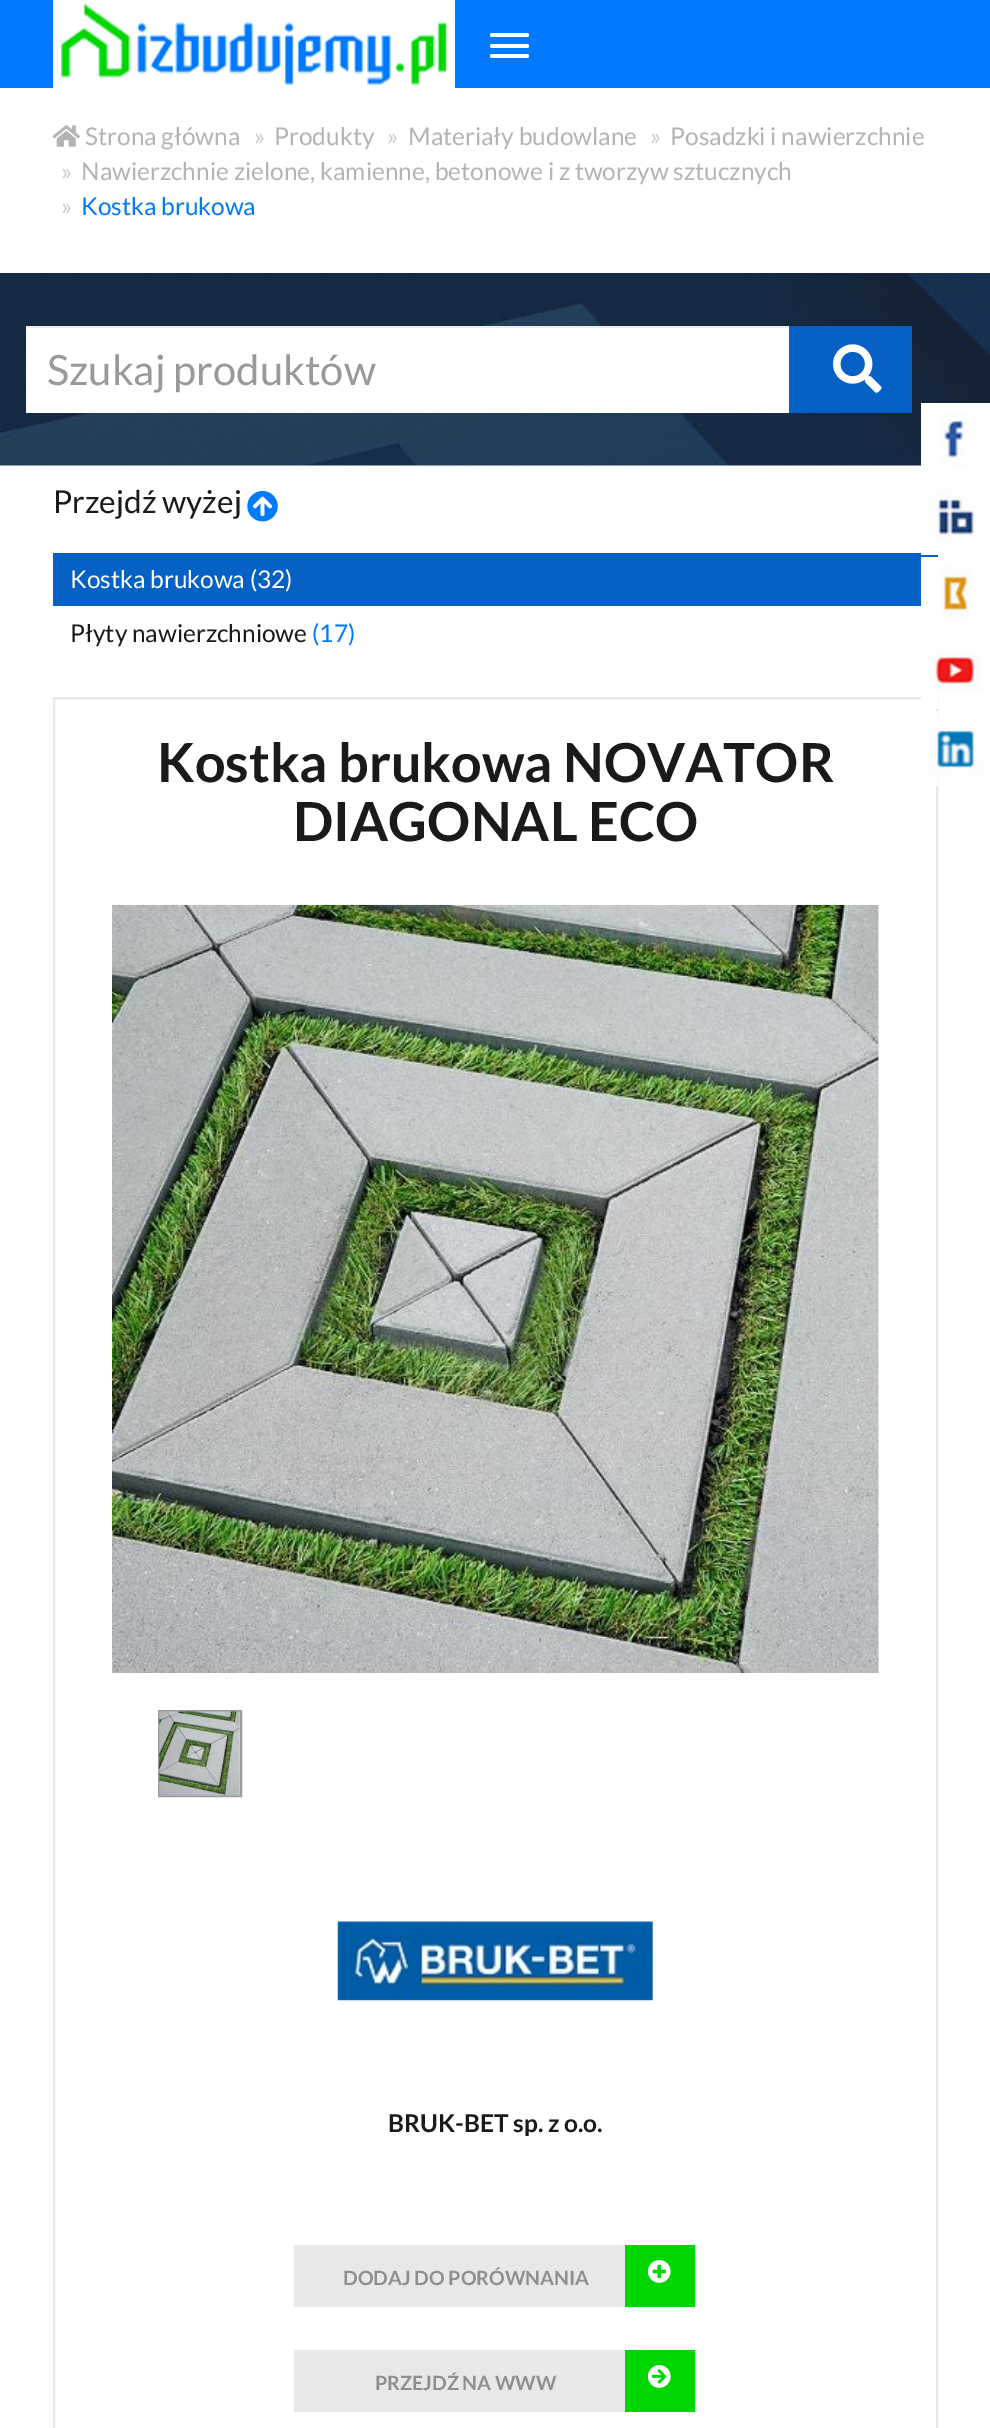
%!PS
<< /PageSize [990 2428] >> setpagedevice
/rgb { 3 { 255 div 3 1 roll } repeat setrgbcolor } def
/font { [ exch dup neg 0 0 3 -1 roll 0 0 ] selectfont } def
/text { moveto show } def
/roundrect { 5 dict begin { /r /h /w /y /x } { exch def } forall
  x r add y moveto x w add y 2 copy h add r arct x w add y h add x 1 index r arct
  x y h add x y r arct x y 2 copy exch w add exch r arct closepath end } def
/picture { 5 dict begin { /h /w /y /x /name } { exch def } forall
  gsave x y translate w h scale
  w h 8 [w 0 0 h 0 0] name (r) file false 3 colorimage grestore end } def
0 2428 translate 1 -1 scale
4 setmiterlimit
255 255 255 rgb
0 0 990 2428 rectfill
0 122 254 rgb
0 0 990 88 rectfill
255 255 255 rgb
53 0 402 88 rectfill
(img_01.rgb) 61 2 386 84 picture
490 33 39 4 2 roundrect fill
490 44 39 4 2 roundrect fill
490 54 39 4 2 roundrect fill
(img_02.rgb) 52 125 28 22 picture
(img_03.rgb) 0 273 990 193 picture
26 328 763 85 rectfill
236 236 236 rgb
26 326 763 2 rectfill
5 97 196 rgb
789 326 123 87 rectfill
(img_04.rgb) 833 344 49 49 picture
(img_05.rgb) 247 490 31 32 picture
53 553 885 53 rectfill
232 232 232 rgb
2 setlinewidth
54 698 883 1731 rectstroke
(img_06.rgb) 112 904 767 769 picture
156 156 156 rgb
159 1711 82 85 rectstroke
(img_07.rgb) 159 1711 81 85 picture
(img_08.rgb) 337 1921 316 80 picture
232 232 232 rgb
294 2245 403 62 rectfill
0 215 0 rgb
625 2245 70 62 rectfill
(img_09.rgb) 647 2260 24 23 picture
232 232 232 rgb
294 2350 403 62 rectfill
0 215 0 rgb
625 2350 70 62 rectfill
(img_10.rgb) 647 2365 24 23 picture
255 255 255 rgb
921 403 69 63 rectfill
(img_11.rgb) 941 411 28 56 picture
921 553 17 2 rectfill
(img_12.rgb) 928 489 56 55 picture
921 557 17 49 rectfill
(img_13.rgb) 941 566 32 55 picture
921 697 17 12 rectfill
(img_14.rgb) 927 651 56 41 picture
936 711 2 75 rectfill
(img_15.rgb) 927 721 57 54 picture
/Lato-Regular 24.5 font
180 180 180 rgb
(Strona główna) 85 145 text
204 204 204 rgb
(») 254 145 text
180 180 180 rgb
(Produkty) 274 145 text
204 204 204 rgb
(») 387 145 text
180 180 180 rgb
(Materiały budowlane) 408 145 text
204 204 204 rgb
(») 650 145 text
180 180 180 rgb
(Posadzki i nawierzchnie) 670 145 text
204 204 204 rgb
(») 61 180 text
180 180 180 rgb
(Nawierzchnie zielone, kamienne, betonowe i z tworzyw sztucznych) 81 180 text
204 204 204 rgb
(») 61 215 text
0 122 245 rgb
(Kostka brukowa) 81 215 text
/Lato-Regular 41.75 font
153 153 153 rgb
(Szukaj produktów) 47 385 text
/Lato-Regular 31.5 font
26 26 26 rgb
(Przejdź wyżej) 53 513 text
/Lato-Regular 24.5 font
255 255 255 rgb
(Kostka brukowa \(32\)) 70 588 text
26 26 26 rgb
(Płyty nawierzchniowe) 70 642 text
0 122 254 rgb
(\(17\)) 312 642 text
/Lato-Bold 53.9 font
26 26 26 rgb
(Kostka brukowa NOVATOR) 157 782 text
(DIAGONAL ECO) 293 841 text
/Lato-Bold 24.5 font
(BRUK-BET sp. z o.o.) 388 2132 text
/Lato-Bold 19.6 font
143 143 143 rgb
(DODAJ DO PORÓWNANIA) 343 2285 text
(PRZEJDŹ NA WWW) 375 2390 text
showpage
